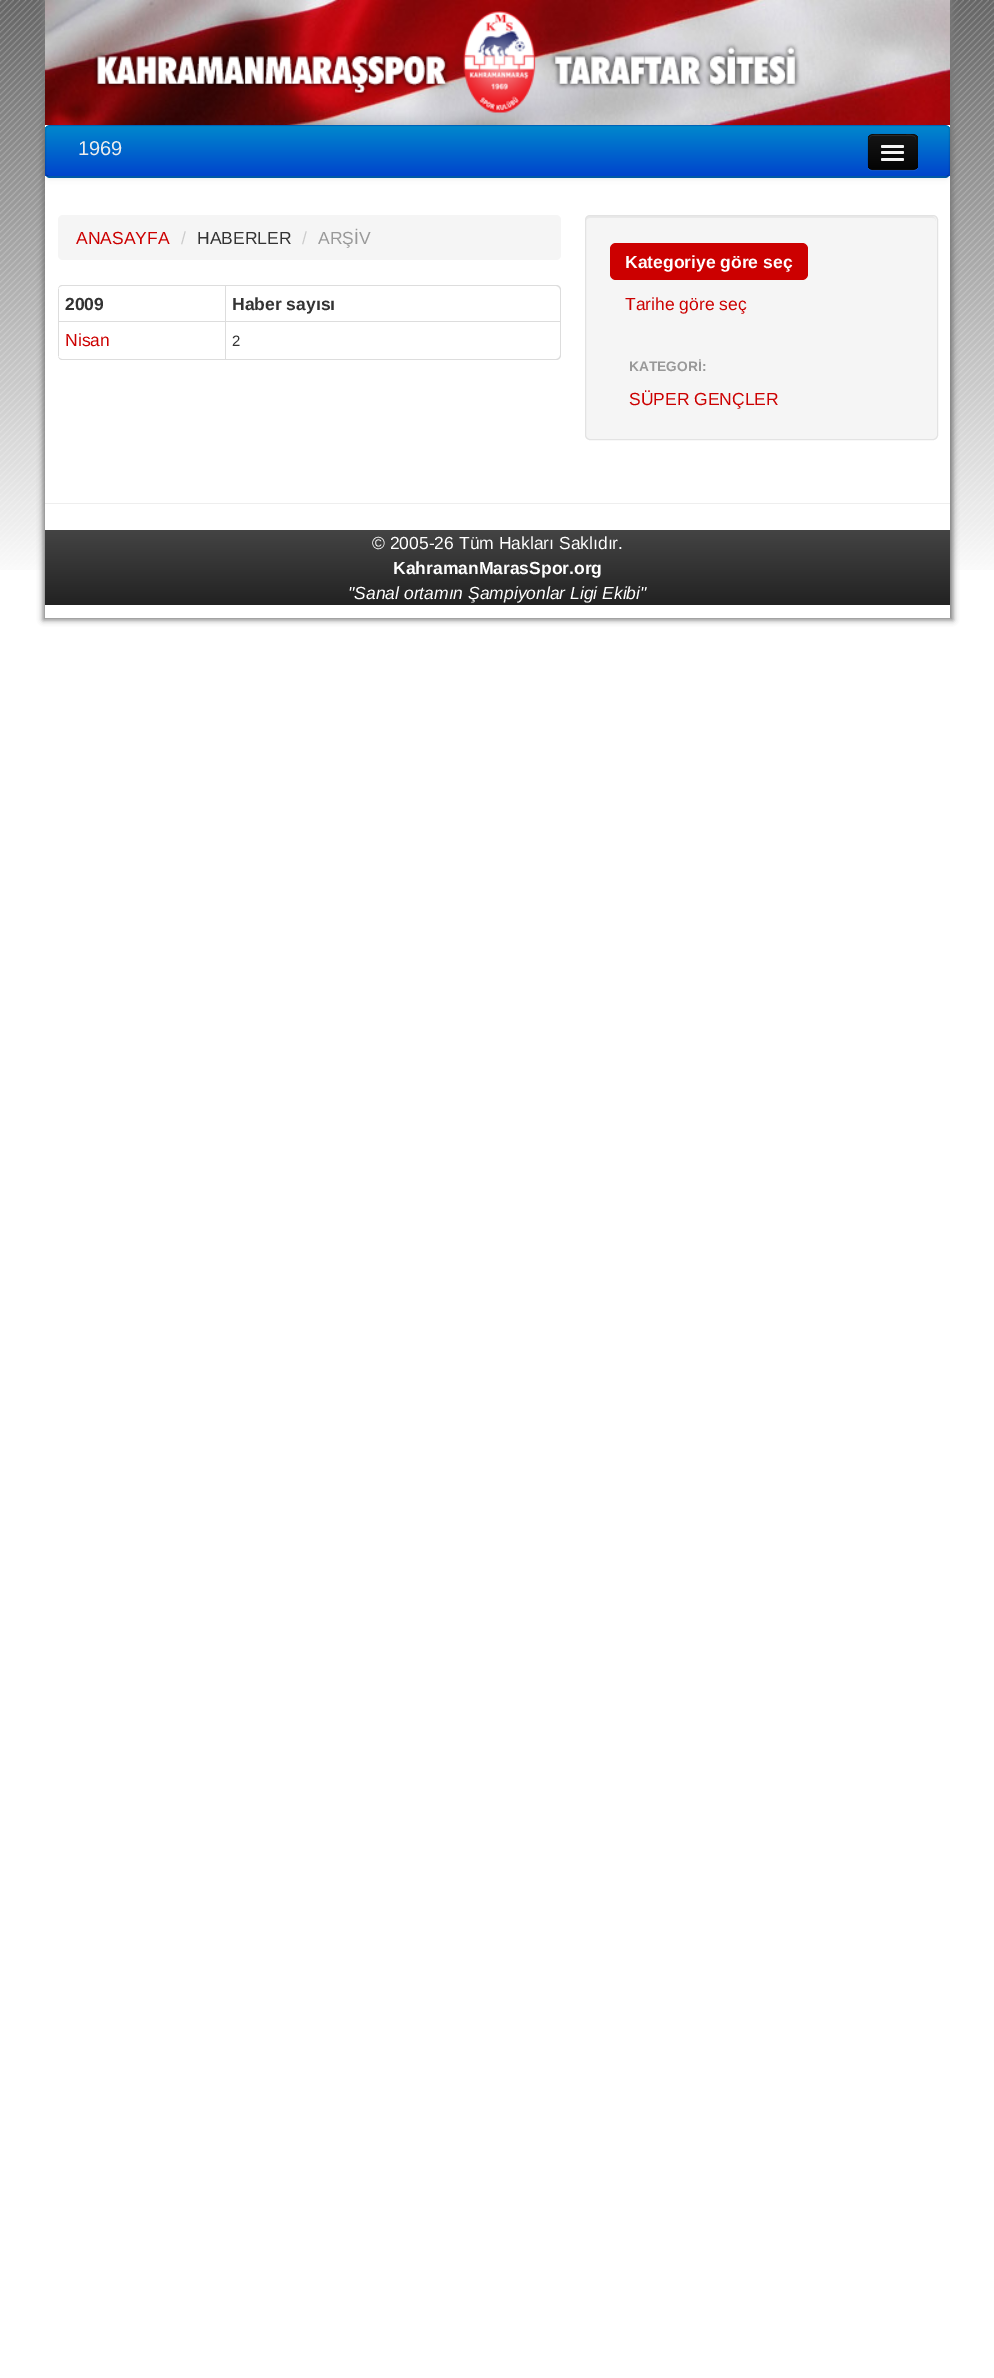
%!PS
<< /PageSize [994 2378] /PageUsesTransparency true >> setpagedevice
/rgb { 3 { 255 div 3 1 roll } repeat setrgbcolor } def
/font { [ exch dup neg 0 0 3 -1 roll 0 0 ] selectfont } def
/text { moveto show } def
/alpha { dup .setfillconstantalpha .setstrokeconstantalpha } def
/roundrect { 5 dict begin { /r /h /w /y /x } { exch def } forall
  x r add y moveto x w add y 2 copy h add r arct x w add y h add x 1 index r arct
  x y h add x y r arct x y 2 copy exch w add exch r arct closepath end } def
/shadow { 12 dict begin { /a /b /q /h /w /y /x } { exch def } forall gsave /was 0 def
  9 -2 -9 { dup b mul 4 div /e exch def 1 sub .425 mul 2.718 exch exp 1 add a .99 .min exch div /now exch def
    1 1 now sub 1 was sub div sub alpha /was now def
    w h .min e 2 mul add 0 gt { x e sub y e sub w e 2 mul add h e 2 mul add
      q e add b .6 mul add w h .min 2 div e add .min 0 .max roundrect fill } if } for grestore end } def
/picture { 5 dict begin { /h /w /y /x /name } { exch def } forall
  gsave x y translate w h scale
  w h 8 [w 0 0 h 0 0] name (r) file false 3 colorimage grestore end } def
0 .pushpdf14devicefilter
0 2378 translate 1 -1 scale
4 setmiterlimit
255 255 255 rgb
0 0 994 2378 rectfill
(img_01.rgb) 0 0 994 570 picture
120 120 120 rgb
43 -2 910 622 0 3 1 shadow
255 255 255 rgb
45 125 905 493 rectfill
0 0 0 rgb
45 126 905 53 5 2.5 0.07 shadow
0 109 204 rgb
45 125 905 53 5 roundrect fill
gsave
45 125 905 53 5 roundrect clip newpath
gsave 45 126 moveto 905 0 rlineto 0 50 rlineto -905 0 rlineto closepath clip newpath
<< /ShadingType 2 /ColorSpace /DeviceRGB /Coords [498 126 498 176] /Extend [true true] /Function << /FunctionType 2 /Domain [0 1] /C0 [0 0.533 0.8] /C1 [0 0.267 0.8] /N 1 >> >> shfill grestore
grestore
0.25 alpha
0 0 0 rgb
1.2 setlinewidth
948 175.5 moveto -0.5 1 -2 1.5 -3 1.5 rcurveto -895 0 rlineto -1 0 -2.5 -0.5 -3 -1.5 rcurveto stroke
0.1 alpha
47 175.5 moveto -1 -0.5 -1.5 -2 -1.5 -3 rcurveto 0 -42.5 rlineto 0 -1 0.5 -2.5 1.5 -3 rcurveto 0.5 -1 2 -1.5 3 -1.5 rcurveto 895 0 rlineto 1 0 2.5 0.5 3 1.5 rcurveto 1 0.5 1.5 2 1.5 3 rcurveto 0 42.5 rlineto 0 1 -0.5 2.5 -1.5 3 rcurveto stroke
1 alpha
(img_02.rgb) 45 0 905 125 picture
(img_03.rgb) 93 11 707 102 picture
0.07 alpha
255 255 255 rgb
868 168 moveto 1 2 3 3 5 3 rcurveto 40 0 rlineto 3 0 5 -2 5 -5 rcurveto 0 -26 rlineto -1 -2 rlineto 1 18 rlineto 0 13 1 14 -12 14 rcurveto -27 0 rlineto -3 0 -8 1 -11 -2 rcurveto closepath fill
1 alpha
14 14 14 rgb
868 134 50 36 5 roundrect fill
gsave
868 134 50 36 5 roundrect clip newpath
gsave 868 135 moveto 50 0 rlineto 0 34 rlineto -50 0 rlineto closepath clip newpath
<< /ShadingType 2 /ColorSpace /DeviceRGB /Coords [893 135 893 169] /Extend [true true] /Function << /FunctionType 2 /Domain [0 1] /C0 [0.082 0.082 0.082] /C1 [0.016 0.016 0.016] /N 1 >> >> shfill grestore
grestore
44 44 44 rgb
872 136 moveto 40 0 rlineto 3 0 4 2 4 4 rcurveto 0 -6 -6 -5 -10 -5 rcurveto -26 0 rlineto -5 0 -11 -1 -11 5 rcurveto 0 -2 1 -4 3 -4 rcurveto closepath fill
0.25 alpha
0 0 0 rgb
915.5 168 moveto -0.5 1 -2 1.5 -3 1.5 rcurveto -40 0 rlineto -1 0 -2.5 -0.5 -3 -1.5 rcurveto stroke
0.1 alpha
869.5 168 moveto -2.5 -2.5 -1.5 -13 -1.5 -16 rcurveto 0 -9 rlineto 0 -3 -0.5 -7.5 3.5 -8.5 rcurveto 42 0 rlineto 4 1 3.5 5.5 3.5 8.5 rcurveto 0 9 rlineto 0 3 1 13.5 -1.5 16 rcurveto stroke
1 alpha
11 11 11 rgb
881.5 146.5 moveto -2.5 3 4 2.5 4.5 2.5 rcurveto 13 0 rlineto 0.5 0 7 0.5 4.5 -2.5 rcurveto 0 0.5 -0.5 1 -1 1 rcurveto -20 0 rlineto -0.5 0 -1 -0.5 -1 -1 rcurveto closepath fill
245 245 245 rgb
881 145 23 3 1.5 roundrect fill
8 8 8 rgb
881.5 153.5 moveto -1 0.5 -0.5 2 0.5 2.5 rcurveto 17 0 rlineto 1 0 4.5 1 5 -1 rcurveto 0 -0.5 0 -1.5 -0.5 -1.5 rcurveto -1 0.5 -21 0.5 -22 0 rcurveto closepath fill
245 245 245 rgb
881 151 23 3 1.5 roundrect fill
881 158 23 3 1.5 roundrect fill
58 215 503 45 5 roundrect fill
221 221 221 rgb
62 285 moveto 494 0 rlineto 3 0 5 2 5 5 rcurveto 0 65 rlineto 0 3 -2 5 -5 5 rcurveto -494 0 rlineto -2 0 -4 -2 -4 -5 rcurveto 0 -65 rlineto 0 -3 2 -5 4 -5 rcurveto closepath 62 286 moveto 494 0 rlineto 2 0 4 2 4 4 rcurveto 0 65 rlineto 0 2 -2 4 -4 4 rcurveto -494 0 rlineto -2 0 -4 -2 -4 -4 rcurveto 0 -65 rlineto 0 -2 2 -4 4 -4 rcurveto closepath eofill
58 289 1 32 rectfill
225 286 1 35 rectfill
58 321 502 1 rectfill
58 321 1 35 rectfill
225 321 1 38 rectfill
245 245 245 rgb
585 215 353 225 5 roundrect fill
233 233 233 rgb
590 218 moveto 342 0 rlineto 3 0 4 1 4 3 rcurveto -1 -3 rlineto -2 -2 rlineto -343 0 rlineto -3 0 -4 2 -4 5 rcurveto 0 -2 2 -3 4 -3 rcurveto closepath fill
227 227 227 rgb
1 setlinewidth
585.5 215.5 352 224 4.5 roundrect stroke
204 0 0 rgb
610 243 198 37 6 roundrect fill
238 238 238 rgb
45 503 905 1 rectfill
gsave 45 530 moveto 905 0 rlineto 0 75 rlineto -905 0 rlineto closepath clip newpath
<< /ShadingType 2 /ColorSpace /DeviceRGB /Coords [498 530 498 605] /Extend [true true] /Function << /FunctionType 2 /Domain [0 1] /C0 [0.267 0.267 0.267] /C1 [0.133 0.133 0.133] /N 1 >> >> shfill grestore
/LiberationSans-Regular 20 font
237 237 237 rgb
(1969) 78 155 text
/LiberationSans-Regular 17.5 font
204 0 0 rgb
(ANASAYFA) 76 244 text
204 204 204 rgb
(/) 181 244 text
51 51 51 rgb
(HABERLER) 197 244 text
204 204 204 rgb
(/) 302 244 text
153 153 153 rgb
(ARŞİV) 318 244 text
/LiberationSans-Bold 17.5 font
51 51 51 rgb
(2009) 65 310 text
(Haber sayısı) 232 310 text
/LiberationSans-Regular 17.5 font
204 0 0 rgb
(Nisan) 65 346 text
/LiberationSans-Regular 15 font
51 51 51 rgb
(2) 232 346 text
/LiberationSans-Bold 17.5 font
255 255 255 rgb
(Kategoriye göre seç) 625 268 text
/LiberationSans-Regular 17.5 font
204 0 0 rgb
(Tarihe göre seç) 625 310 text
/LiberationSans-Bold 13.75 font
153 153 153 rgb
(KATEGORİ:) 629 371 text
/LiberationSans-Regular 17.5 font
204 0 0 rgb
(SÜPER GENÇLER) 629 405 text
255 255 255 rgb
(© 2005-26 Tüm Hakları Saklıdır.) 372 549 text
/LiberationSans-Bold 17.5 font
(KahramanMarasSpor.org) 393 574 text
/LiberationSans-Italic 17.5 font
("Sanal ortamın Şampiyonlar Ligi Ekibi") 348 599 text
.poppdf14devicefilter showpage
